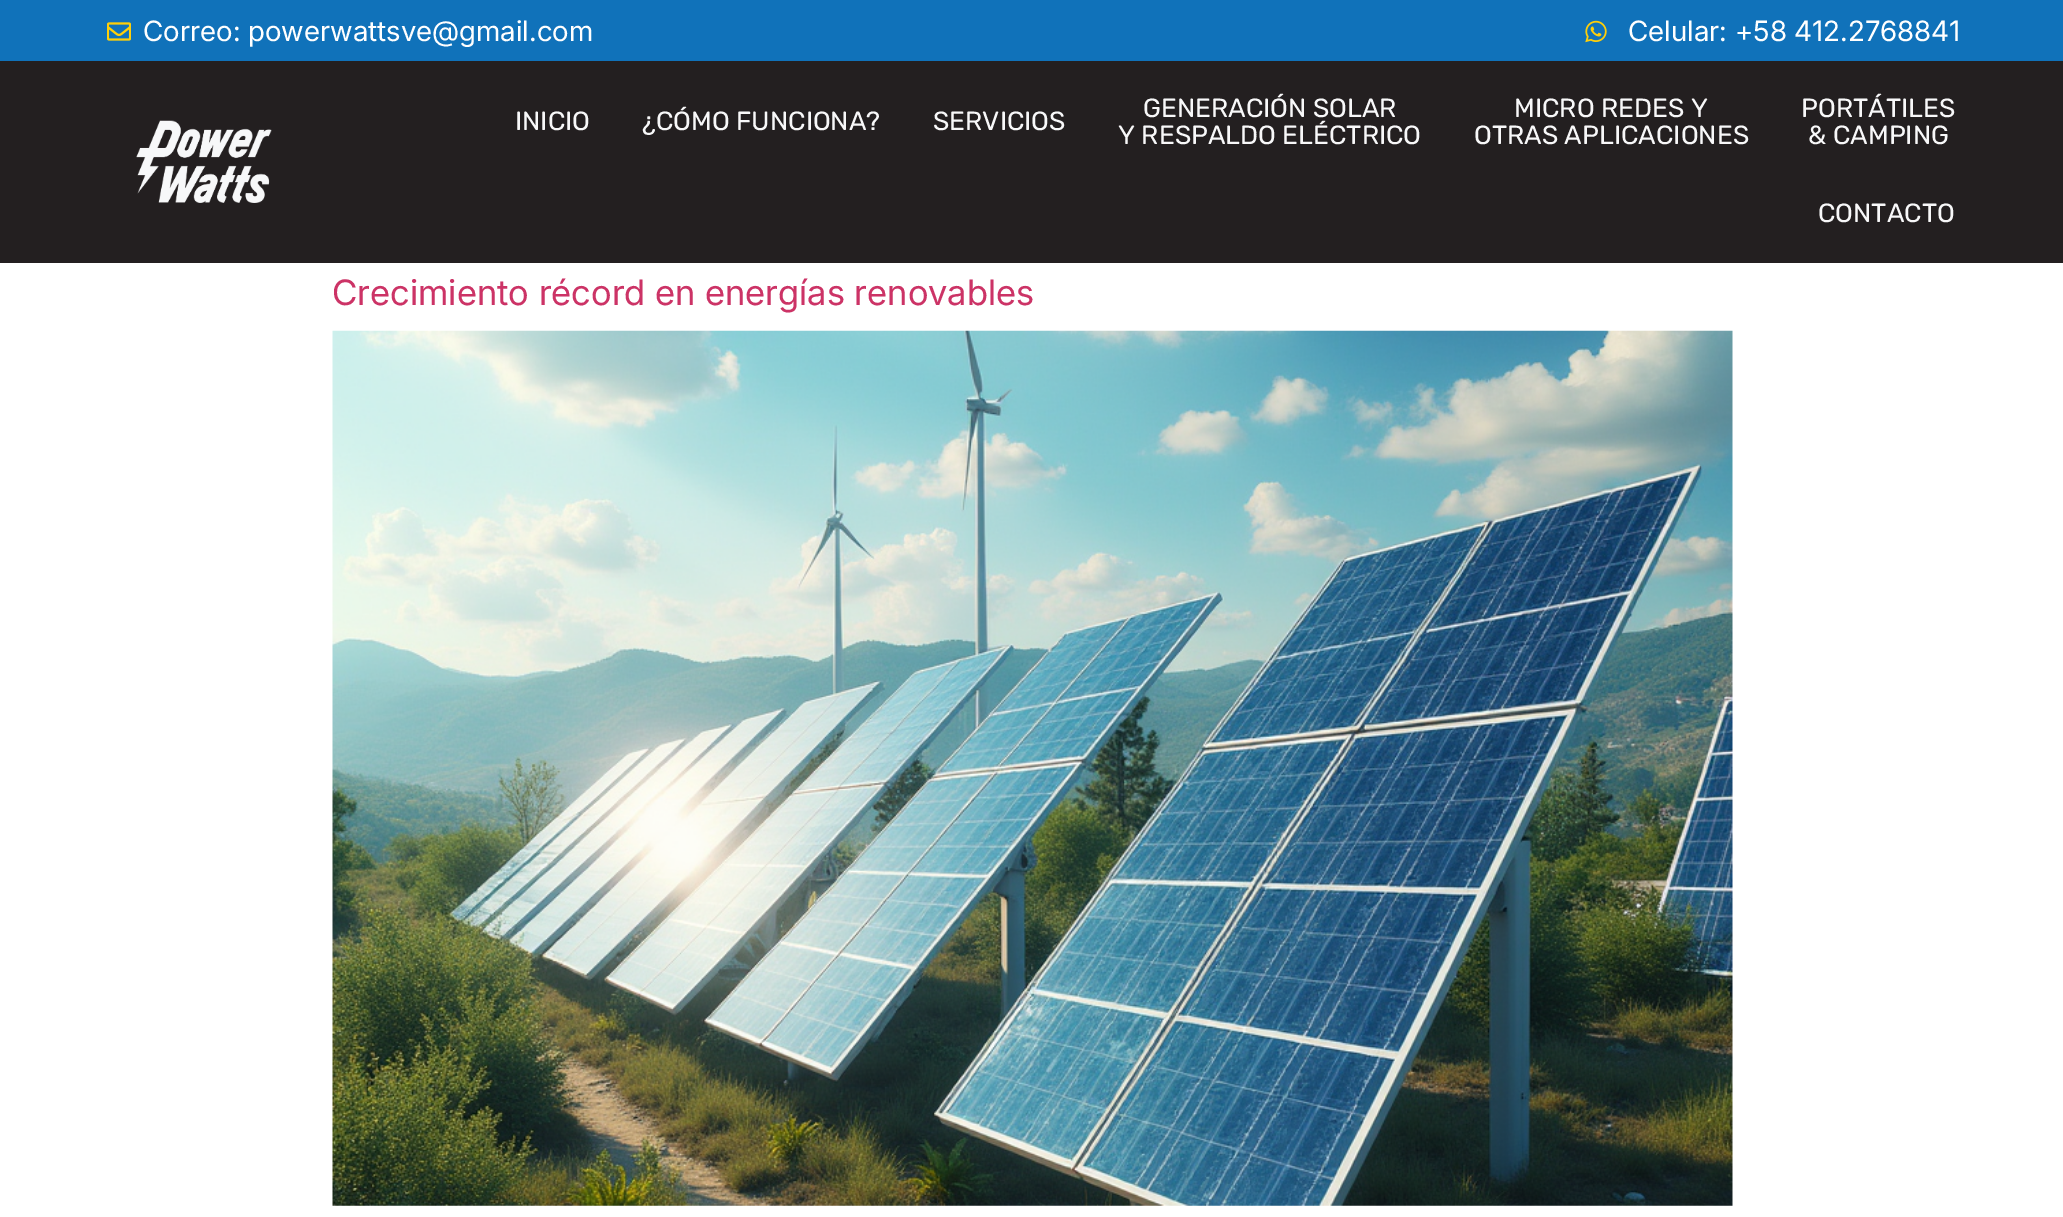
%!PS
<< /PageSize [2063 1217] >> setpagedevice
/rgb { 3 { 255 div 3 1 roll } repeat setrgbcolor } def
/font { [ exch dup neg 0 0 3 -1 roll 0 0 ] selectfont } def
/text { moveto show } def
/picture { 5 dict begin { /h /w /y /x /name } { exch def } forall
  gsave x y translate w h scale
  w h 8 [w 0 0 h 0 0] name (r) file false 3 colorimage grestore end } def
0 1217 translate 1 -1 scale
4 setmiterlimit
255 255 255 rgb
0 0 2063 1217 rectfill
16 114 186 rgb
0 0 2063 61 rectfill
(img_01.rgb) 107 22 24 19 picture
(img_02.rgb) 1585 20 22 23 picture
35 31 32 rgb
0 61 2063 202 rectfill
(img_03.rgb) 136 120 136 83 picture
(img_04.rgb) 332 330 1401 876 picture
/Inter-Regular 28 font
255 255 255 rgb
(Correo: powerwattsve@gmail.com) 143 41 text
(Celular: +58 412.2768841) 1628 41 text
/Rubik-Regular 26.25 font
248 248 249 rgb
(INICIO) 515 130 text
(¿CÓMO FUNCIONA?) 642 130 text
(SERVICIOS) 933 130 text
(GENERACIÓN SOLAR) 1143 117 text
(Y RESPALDO ELÉCTRICO) 1118 144 text
(MICRO REDES Y) 1514 117 text
(OTRAS APLICACIONES) 1474 144 text
(PORTÁTILES) 1801 117 text
(& CAMPING) 1808 144 text
(CONTACTO) 1818 222 text
/Inter-Regular 35 font
204 51 102 rgb
(Crecimiento récord en energías renovables) 332 305 text
showpage
